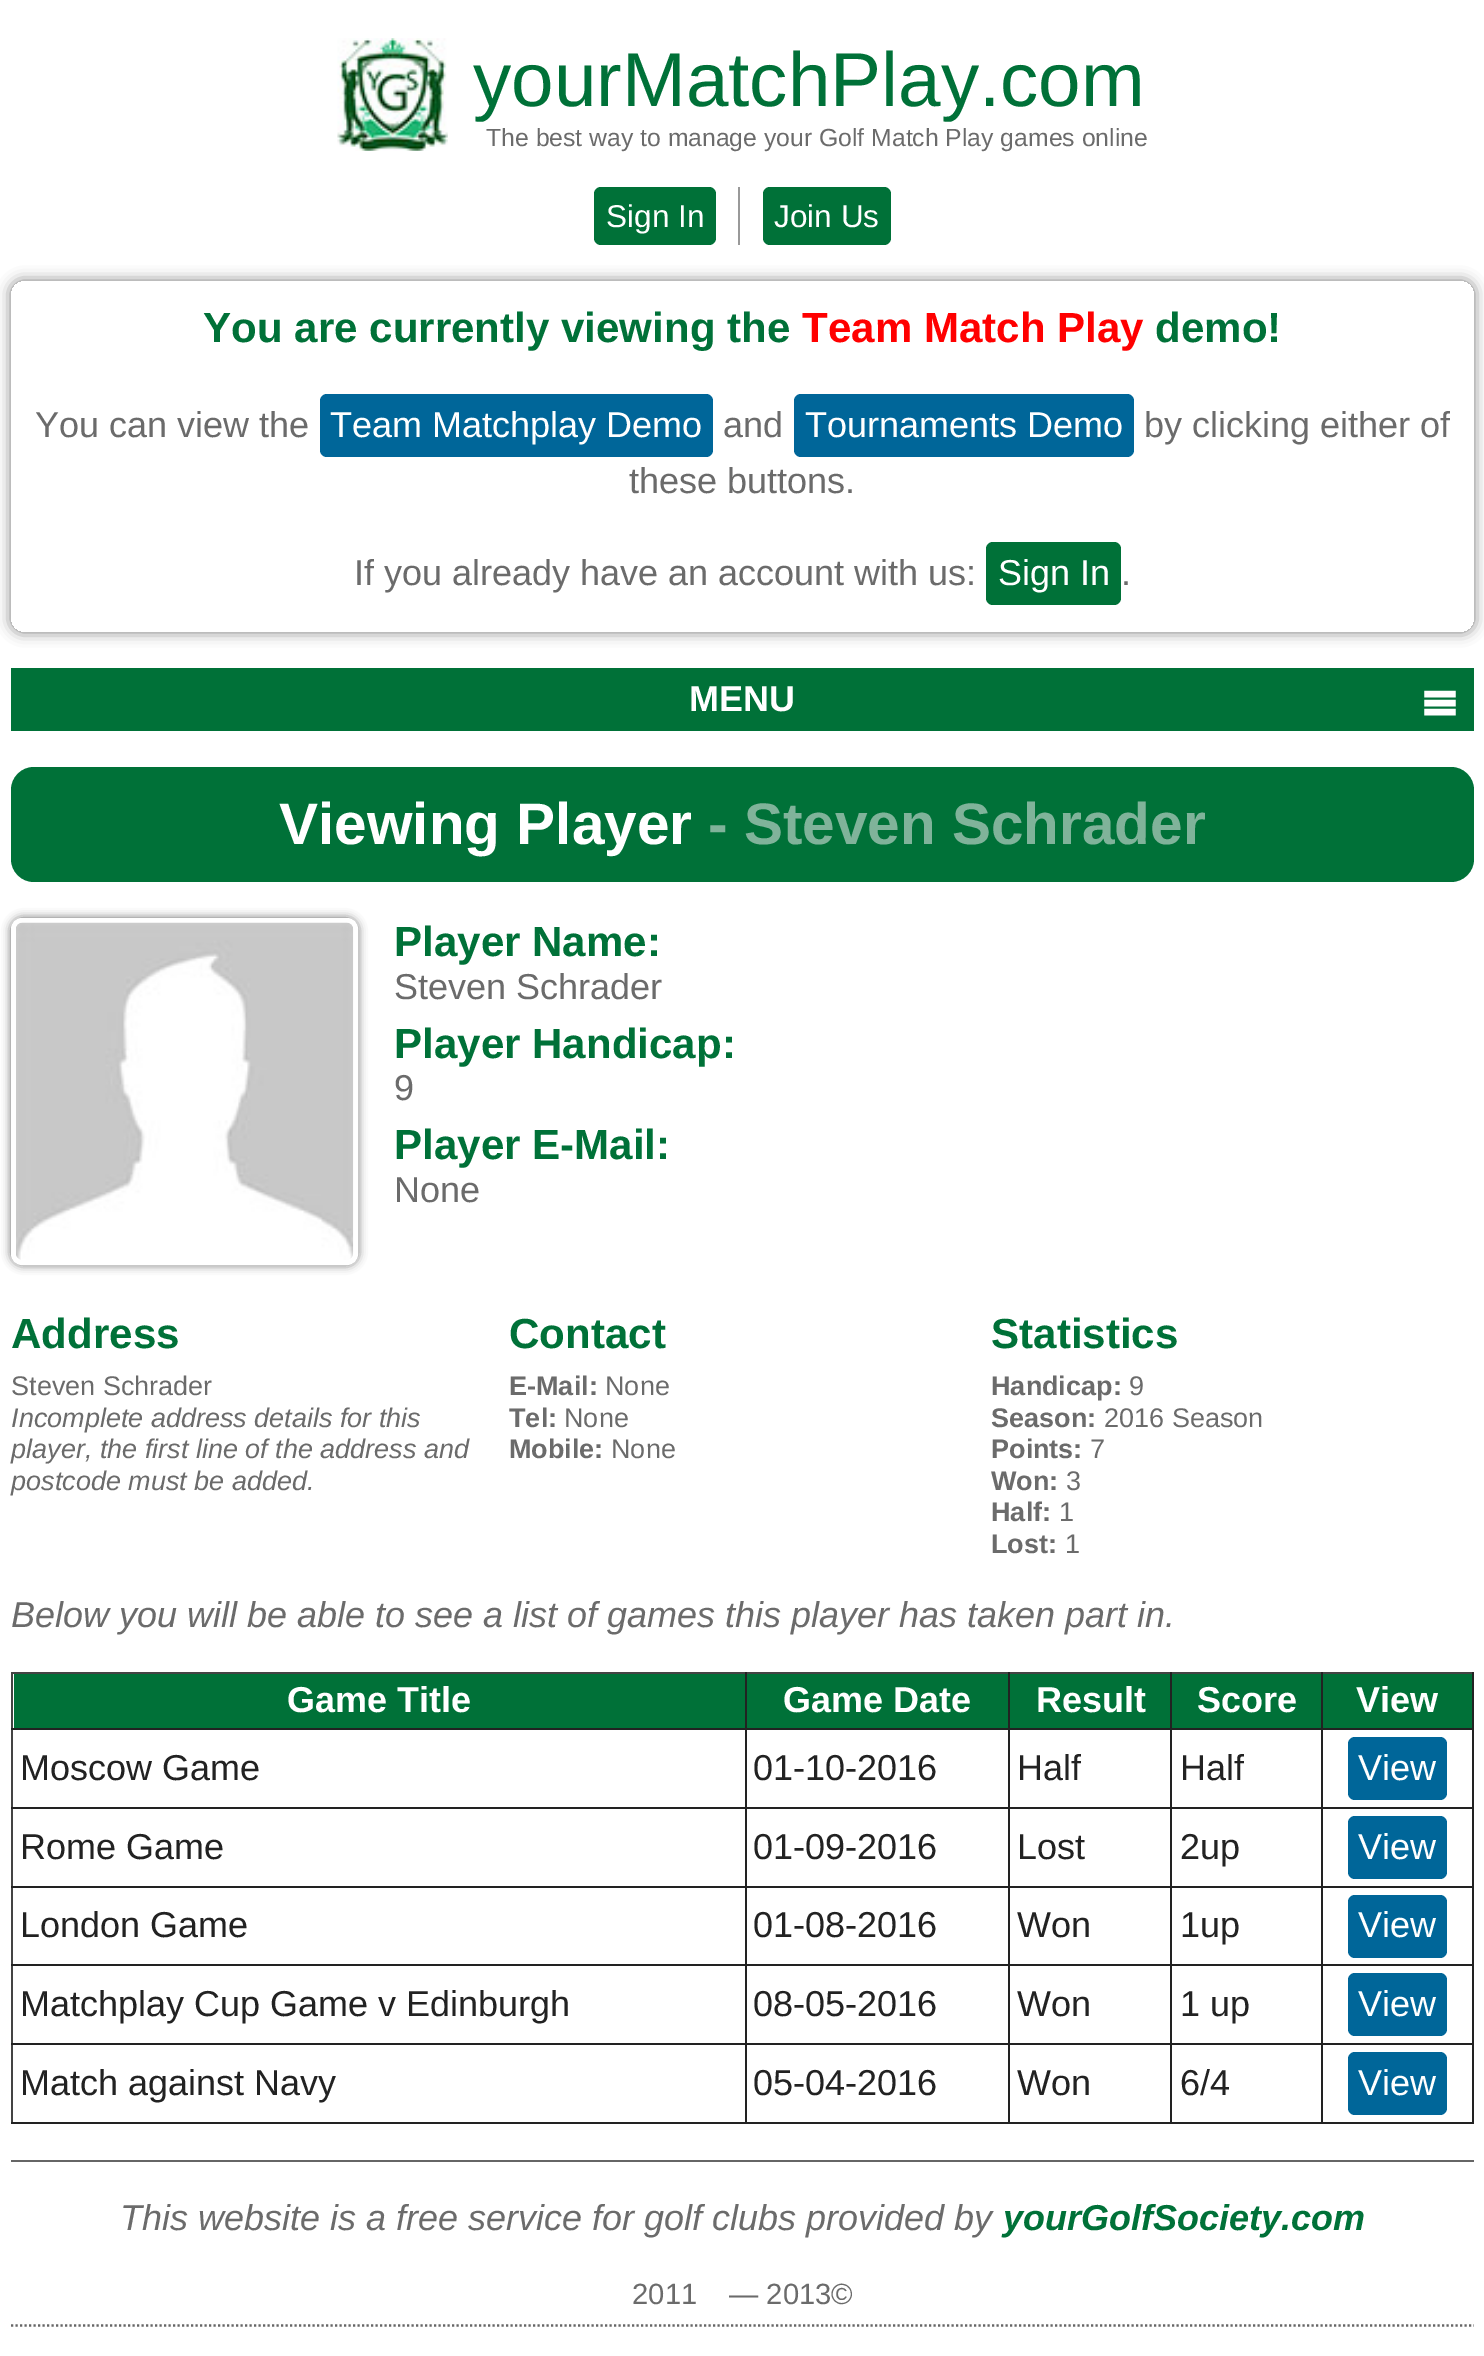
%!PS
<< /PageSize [1484 2356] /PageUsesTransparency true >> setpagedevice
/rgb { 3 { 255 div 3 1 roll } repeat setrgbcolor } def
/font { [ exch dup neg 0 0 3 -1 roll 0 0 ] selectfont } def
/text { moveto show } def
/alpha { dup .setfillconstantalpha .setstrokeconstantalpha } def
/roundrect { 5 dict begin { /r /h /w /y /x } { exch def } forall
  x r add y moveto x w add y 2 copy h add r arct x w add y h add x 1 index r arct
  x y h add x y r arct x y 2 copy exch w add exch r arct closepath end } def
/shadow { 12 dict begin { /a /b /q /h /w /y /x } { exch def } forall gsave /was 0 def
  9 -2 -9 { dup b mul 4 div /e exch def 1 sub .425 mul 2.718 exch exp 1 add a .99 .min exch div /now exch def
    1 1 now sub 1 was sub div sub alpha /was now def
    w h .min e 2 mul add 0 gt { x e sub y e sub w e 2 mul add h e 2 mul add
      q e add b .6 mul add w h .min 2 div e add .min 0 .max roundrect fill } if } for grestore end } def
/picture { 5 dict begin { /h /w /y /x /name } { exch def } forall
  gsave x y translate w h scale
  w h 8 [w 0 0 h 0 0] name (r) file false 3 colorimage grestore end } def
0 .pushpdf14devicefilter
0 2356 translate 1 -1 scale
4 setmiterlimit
255 255 255 rgb
0 0 1484 2356 rectfill
(img_01.rgb) 337 38 111 113 picture
0 113 56 rgb
594 187 122 58 7 roundrect fill
153 153 153 rgb
738 187 2 58 rectfill
0 113 56 rgb
763 187 128 58 7 roundrect fill
102 102 102 rgb
11 2160 1463 2 rectfill
gsave
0 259 moveto 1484 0 rlineto 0 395 rlineto -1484 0 rlineto closepath 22 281 moveto 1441 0 rlineto 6 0 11 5 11 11 rcurveto 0 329 rlineto 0 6 -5 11 -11 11 rcurveto -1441 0 rlineto -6 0 -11 -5 -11 -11 rcurveto 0 -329 rlineto 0 -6 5 -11 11 -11 rcurveto closepath eoclip newpath
119 119 119 rgb
11 281 1463 351 11 7 1 shadow
grestore
0 102 153 rgb
320 394 393 63 7 roundrect fill
794 394 340 63 7 roundrect fill
0 113 56 rgb
986 542 135 63 7 roundrect fill
11 668 1463 63 rectfill
(img_02.rgb) 1424 690 32 26 picture
11 767 1463 115 23 roundrect fill
102 102 102 rgb
11 918 347 347 11 4.5 1 shadow
255 255 255 rgb
5 setlinewidth
13.5 920.5 342 342 8.5 roundrect stroke
(img_03.rgb) 16 922 338 338 picture
68 68 68 rgb
11 1672 1463 2 rectfill
11 1672 2 452 rectfill
0 113 56 rgb
14 1674 731 54 rectfill
34 34 34 rgb
1472 1672 2 452 rectfill
1321 2122 153 2 rectfill
1321 2043 2 81 rectfill
1321 2043 153 2 rectfill
1321 1964 2 81 rectfill
1321 1964 153 2 rectfill
1321 1886 2 81 rectfill
1321 1886 153 2 rectfill
1321 1807 2 81 rectfill
1321 1807 153 2 rectfill
1321 1728 2 81 rectfill
1321 1728 153 2 rectfill
1321 1672 2 58 rectfill
1170 2122 153 2 rectfill
1170 2043 2 81 rectfill
1170 2043 153 2 rectfill
1170 1964 2 81 rectfill
1170 1964 153 2 rectfill
1170 1886 2 81 rectfill
1170 1886 153 2 rectfill
1170 1807 2 81 rectfill
1170 1807 153 2 rectfill
1170 1728 2 81 rectfill
1170 1728 153 2 rectfill
1170 1672 2 58 rectfill
1008 2122 164 2 rectfill
1008 2043 2 81 rectfill
1008 2043 164 2 rectfill
1008 1964 2 81 rectfill
1008 1964 164 2 rectfill
1008 1886 2 81 rectfill
1008 1886 164 2 rectfill
1008 1807 2 81 rectfill
1008 1807 164 2 rectfill
1008 1728 2 81 rectfill
1008 1728 164 2 rectfill
1008 1672 2 58 rectfill
745 2122 265 2 rectfill
745 2043 2 81 rectfill
745 2043 265 2 rectfill
745 1964 2 81 rectfill
745 1964 265 2 rectfill
745 1886 2 81 rectfill
745 1886 265 2 rectfill
745 1807 2 81 rectfill
745 1807 265 2 rectfill
745 1728 2 81 rectfill
745 1728 265 2 rectfill
745 1672 2 58 rectfill
11 1728 736 2 rectfill
0 113 56 rgb
747 1674 261 54 rectfill
1010 1674 160 54 rectfill
1172 1674 149 54 rectfill
1323 1674 149 54 rectfill
34 34 34 rgb
11 1807 736 2 rectfill
0 102 153 rgb
1348 1737 99 63 7 roundrect fill
34 34 34 rgb
11 1886 736 2 rectfill
0 102 153 rgb
1348 1816 99 63 7 roundrect fill
34 34 34 rgb
11 1964 736 2 rectfill
0 102 153 rgb
1348 1895 99 63 7 roundrect fill
34 34 34 rgb
11 2043 736 2 rectfill
0 102 153 rgb
1348 1973 99 63 7 roundrect fill
34 34 34 rgb
11 2122 736 2 rectfill
0 102 153 rgb
1348 2052 99 63 7 roundrect fill
102 102 102 rgb
2.2 setlinewidth
[2.25 2.25] 0 setdash
11 2325.5 moveto 1463 0 rlineto stroke
/LiberationSans-Regular 76.5 font
0 113 56 rgb
(yourMatchPlay.com) 473 106 text
/LiberationSans-Regular 24.75 font
107 107 107 rgb
(The best way to manage your Golf Match Play games online) 486 146 text
/LiberationSans-Regular 31.5 font
255 255 255 rgb
(Sign In) 606 227 text
(Join Us) 774 227 text
/LiberationSans-Bold 42.1 font
0 113 56 rgb
(You are currently viewing the) 203 342 text
255 0 0 rgb
(Team Match Play) 802 342 text
0 113 56 rgb
(demo!) 1155 342 text
/LiberationSans-Regular 36 font
107 107 107 rgb
(You can view the) 35 437 text
255 255 255 rgb
(Team Matchplay Demo) 330 437 text
107 107 107 rgb
(and) 723 437 text
255 255 255 rgb
(Tournaments Demo) 805 437 text
107 107 107 rgb
(by clicking either of) 1144 437 text
(these buttons.) 629 493 text
(If you already have an account with us:) 354 585 text
255 255 255 rgb
(Sign In) 998 585 text
107 107 107 rgb
(.) 1121 585 text
/LiberationSans-Bold 36 font
255 255 255 rgb
(MENU) 689 711 text
/LiberationSans-Bold 58.5 font
(Viewing Player) 279 844 text
128 179 154 rgb
(- Steven Schrader) 708 844 text
/LiberationSans-Bold 42.1 font
0 113 56 rgb
(Player Name:) 394 956 text
/LiberationSans-Regular 36 font
107 107 107 rgb
(Steven Schrader) 394 999 text
/LiberationSans-Bold 42.1 font
0 113 56 rgb
(Player Handicap:) 394 1058 text
/LiberationSans-Regular 36 font
107 107 107 rgb
(9) 394 1100 text
/LiberationSans-Bold 42.1 font
0 113 56 rgb
(Player E-Mail:) 394 1159 text
/LiberationSans-Regular 36 font
107 107 107 rgb
(None) 394 1202 text
/LiberationSans-Bold 42.1 font
0 113 56 rgb
(Address) 11 1348 text
/LiberationSans-Regular 27 font
107 107 107 rgb
(Steven Schrader) 11 1395 text
/LiberationSans-Italic 27 font
(Incomplete address details for this) 11 1427 text
(player, the first line of the address and) 11 1458 text
(postcode must be added.) 11 1490 text
/LiberationSans-Bold 42.1 font
0 113 56 rgb
(Contact) 509 1348 text
/LiberationSans-Bold 27 font
107 107 107 rgb
(E-Mail:) 509 1395 text
/LiberationSans-Regular 27 font
(None) 605 1395 text
/LiberationSans-Bold 27 font
(Tel:) 509 1427 text
/LiberationSans-Regular 27 font
(None) 564 1427 text
/LiberationSans-Bold 27 font
(Mobile:) 509 1458 text
/LiberationSans-Regular 27 font
(None) 611 1458 text
/LiberationSans-Bold 42.1 font
0 113 56 rgb
(Statistics) 991 1348 text
/LiberationSans-Bold 27 font
107 107 107 rgb
(Handicap:) 991 1395 text
/LiberationSans-Regular 27 font
(9) 1129 1395 text
/LiberationSans-Bold 27 font
(Season:) 991 1427 text
/LiberationSans-Regular 27 font
(2016 Season) 1104 1427 text
/LiberationSans-Bold 27 font
(Points:) 991 1458 text
/LiberationSans-Regular 27 font
(7) 1090 1458 text
/LiberationSans-Bold 27 font
(Won:) 991 1490 text
/LiberationSans-Regular 27 font
(3) 1066 1490 text
/LiberationSans-Bold 27 font
(Half:) 991 1521 text
/LiberationSans-Regular 27 font
(1) 1059 1521 text
/LiberationSans-Bold 27 font
(Lost:) 991 1553 text
/LiberationSans-Regular 27 font
(1) 1065 1553 text
/LiberationSans-Italic 36 font
(Below you will be able to see a list of games this player has taken part in.) 11 1627 text
/LiberationSans-Bold 36 font
255 255 255 rgb
(Game Title) 287 1712 text
(Game Date) 783 1712 text
(Result) 1036 1712 text
(Score) 1197 1712 text
(View) 1356 1712 text
/LiberationSans-Regular 36 font
34 34 34 rgb
(Moscow Game) 20 1780 text
(01-10-2016) 753 1780 text
(Half) 1017 1780 text
(Half) 1180 1780 text
255 255 255 rgb
(View) 1358 1780 text
34 34 34 rgb
(Rome Game) 20 1859 text
(01-09-2016) 753 1859 text
(Lost) 1017 1859 text
(2up) 1180 1859 text
255 255 255 rgb
(View) 1358 1859 text
34 34 34 rgb
(London Game) 20 1937 text
(01-08-2016) 753 1937 text
(Won) 1017 1937 text
(1up) 1180 1937 text
255 255 255 rgb
(View) 1358 1937 text
34 34 34 rgb
(Matchplay Cup Game v Edinburgh) 20 2016 text
(08-05-2016) 753 2016 text
(Won) 1017 2016 text
(1 up) 1180 2016 text
255 255 255 rgb
(View) 1358 2016 text
34 34 34 rgb
(Match against Navy) 20 2095 text
(05-04-2016) 753 2095 text
(Won) 1017 2095 text
(6/4) 1180 2095 text
255 255 255 rgb
(View) 1358 2095 text
/LiberationSans-Italic 36 font
107 107 107 rgb
(This website is a free service for golf clubs provided by) 120 2230 text
/LiberationSans-BoldItalic 36 font
0 113 56 rgb
(yourGolfSociety.com) 1003 2230 text
/LiberationSans-Regular 29.25 font
107 107 107 rgb
(2011) 632 2304 text
(— 2013©) 729 2304 text
.poppdf14devicefilter showpage
